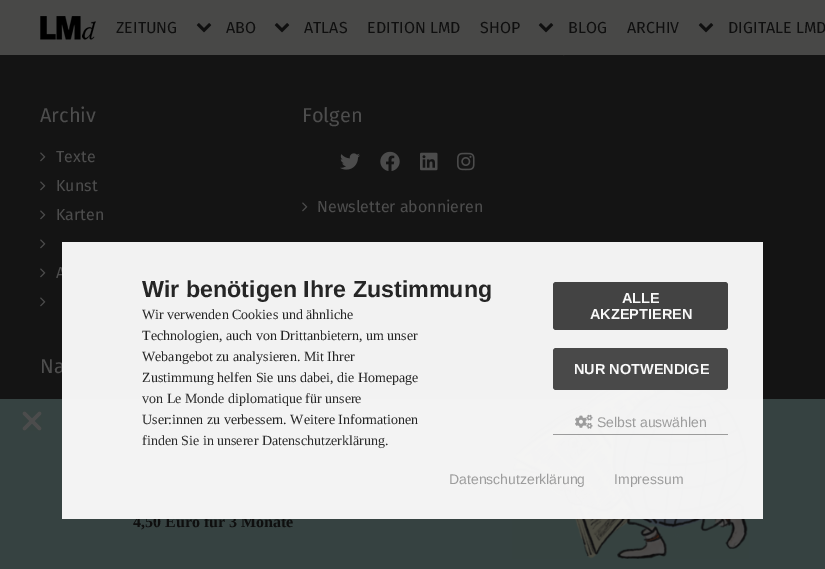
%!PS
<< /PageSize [825 569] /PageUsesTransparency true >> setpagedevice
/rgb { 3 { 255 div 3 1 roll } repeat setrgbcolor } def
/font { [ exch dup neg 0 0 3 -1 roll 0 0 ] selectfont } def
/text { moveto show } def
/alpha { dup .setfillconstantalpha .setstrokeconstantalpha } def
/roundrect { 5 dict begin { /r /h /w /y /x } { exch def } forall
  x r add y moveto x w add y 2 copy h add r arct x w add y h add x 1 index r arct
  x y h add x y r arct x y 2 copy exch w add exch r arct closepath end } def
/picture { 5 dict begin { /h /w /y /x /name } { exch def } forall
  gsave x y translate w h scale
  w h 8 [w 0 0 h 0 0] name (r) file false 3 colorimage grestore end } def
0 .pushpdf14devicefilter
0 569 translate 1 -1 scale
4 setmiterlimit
20 20 20 rgb
0 0 825 569 rectfill
72 72 71 rgb
0 0 825 55 rectfill
(img_01.rgb) 40 16 56 24 picture
(img_02.rgb) 196 23 16 10 picture
(img_02.rgb) 274 23 16 10 picture
(img_02.rgb) 538 23 16 10 picture
(img_02.rgb) 698 23 16 10 picture
(img_03.rgb) 563 55 2 1 picture
(img_04.rgb) 40 152 6 10 picture
(img_04.rgb) 40 181 6 10 picture
(img_04.rgb) 40 210 6 10 picture
(img_04.rgb) 40 239 6 10 picture
(img_04.rgb) 40 268 6 10 picture
(img_04.rgb) 40 297 6 10 picture
(img_05.rgb) 340 153 20 17 picture
(img_06.rgb) 380 151 20 20 picture
(img_07.rgb) 420 152 18 19 picture
(img_08.rgb) 457 152 18 19 picture
(img_04.rgb) 302 202 6 10 picture
54 66 65 rgb
0 399 825 170 rectfill
(img_09.rgb) 22 411 20 20 picture
(img_10.rgb) 512 390 237 169 picture
/FiraSans-Regular 16 font
15 15 15 rgb
(ZEITUNG) 116 33 text
(ABO) 226 33 text
(ATLAS) 304 33 text
(EDITION LMD) 367 33 text
(SHOP) 480 33 text
(BLOG) 568 33 text
(ARCHIV) 627 33 text
(DIGITALE LMD) 728 33 text
/FiraSans-Regular 20 font
77 77 77 rgb
(Archiv) 40 122 text
/FiraSans-Regular 16 font
(Texte) 56 162 text
(Kunst) 56 191 text
(Karten) 56 220 text
(A) 56 278 text
/FiraSans-Regular 20 font
(Na) 40 373 text
(Folgen) 302 122 text
/FiraSans-Regular 16 font
(Newsletter abonnieren) 317 212 text
/LiberationSerif-Bold 16 font
15 15 15 rgb
(4,50 Euro für 3 Monate) 133 527 text
0.97 alpha
249 249 249 rgb
62 242 701 277 rectfill
/LiberationSans-Bold 23.25 font
1 alpha
37 37 37 rgb
(Wir benötigen Ihre Zustimmung) 142 297 text
/LiberationSerif-Regular 14 font
(Wir verwenden Cookies und ähnliche) 142 319 text
(Technologien, auch von Drittanbietern, um unser) 142 340 text
(Webangebot zu analysieren. Mit Ihrer) 142 361 text
(Zustimmung helfen Sie uns dabei, die Homepage) 142 382 text
44 44 44 rgb
(von Le Monde diplomatique für unsere) 142 403 text
37 37 37 rgb
(User:innen zu verbessern. Weitere Informationen) 142 424 text
44 44 44 rgb
(finden Sie in unserer Datenschutzerklärung.) 142 445 text
67 67 67 rgb
553 282 175 48 3 roundrect fill
/LiberationSans-Bold 14.5 font
248 248 248 rgb
(ALLE) 622 303 text
(AKZEPTIEREN) 590 319 text
73 73 73 rgb
553 348 175 42 3 roundrect fill
248 248 248 rgb
(NUR NOTWENDIGE) 574 374 text
156 156 156 rgb
553 434 175 1 rectfill
(img_11.rgb) 575 414 18 15 picture
/LiberationSans-Regular 14 font
(Selbst auswählen) 597 427 text
(Datenschutzerklärung) 449 484 text
(Impressum) 614 484 text
.poppdf14devicefilter showpage
